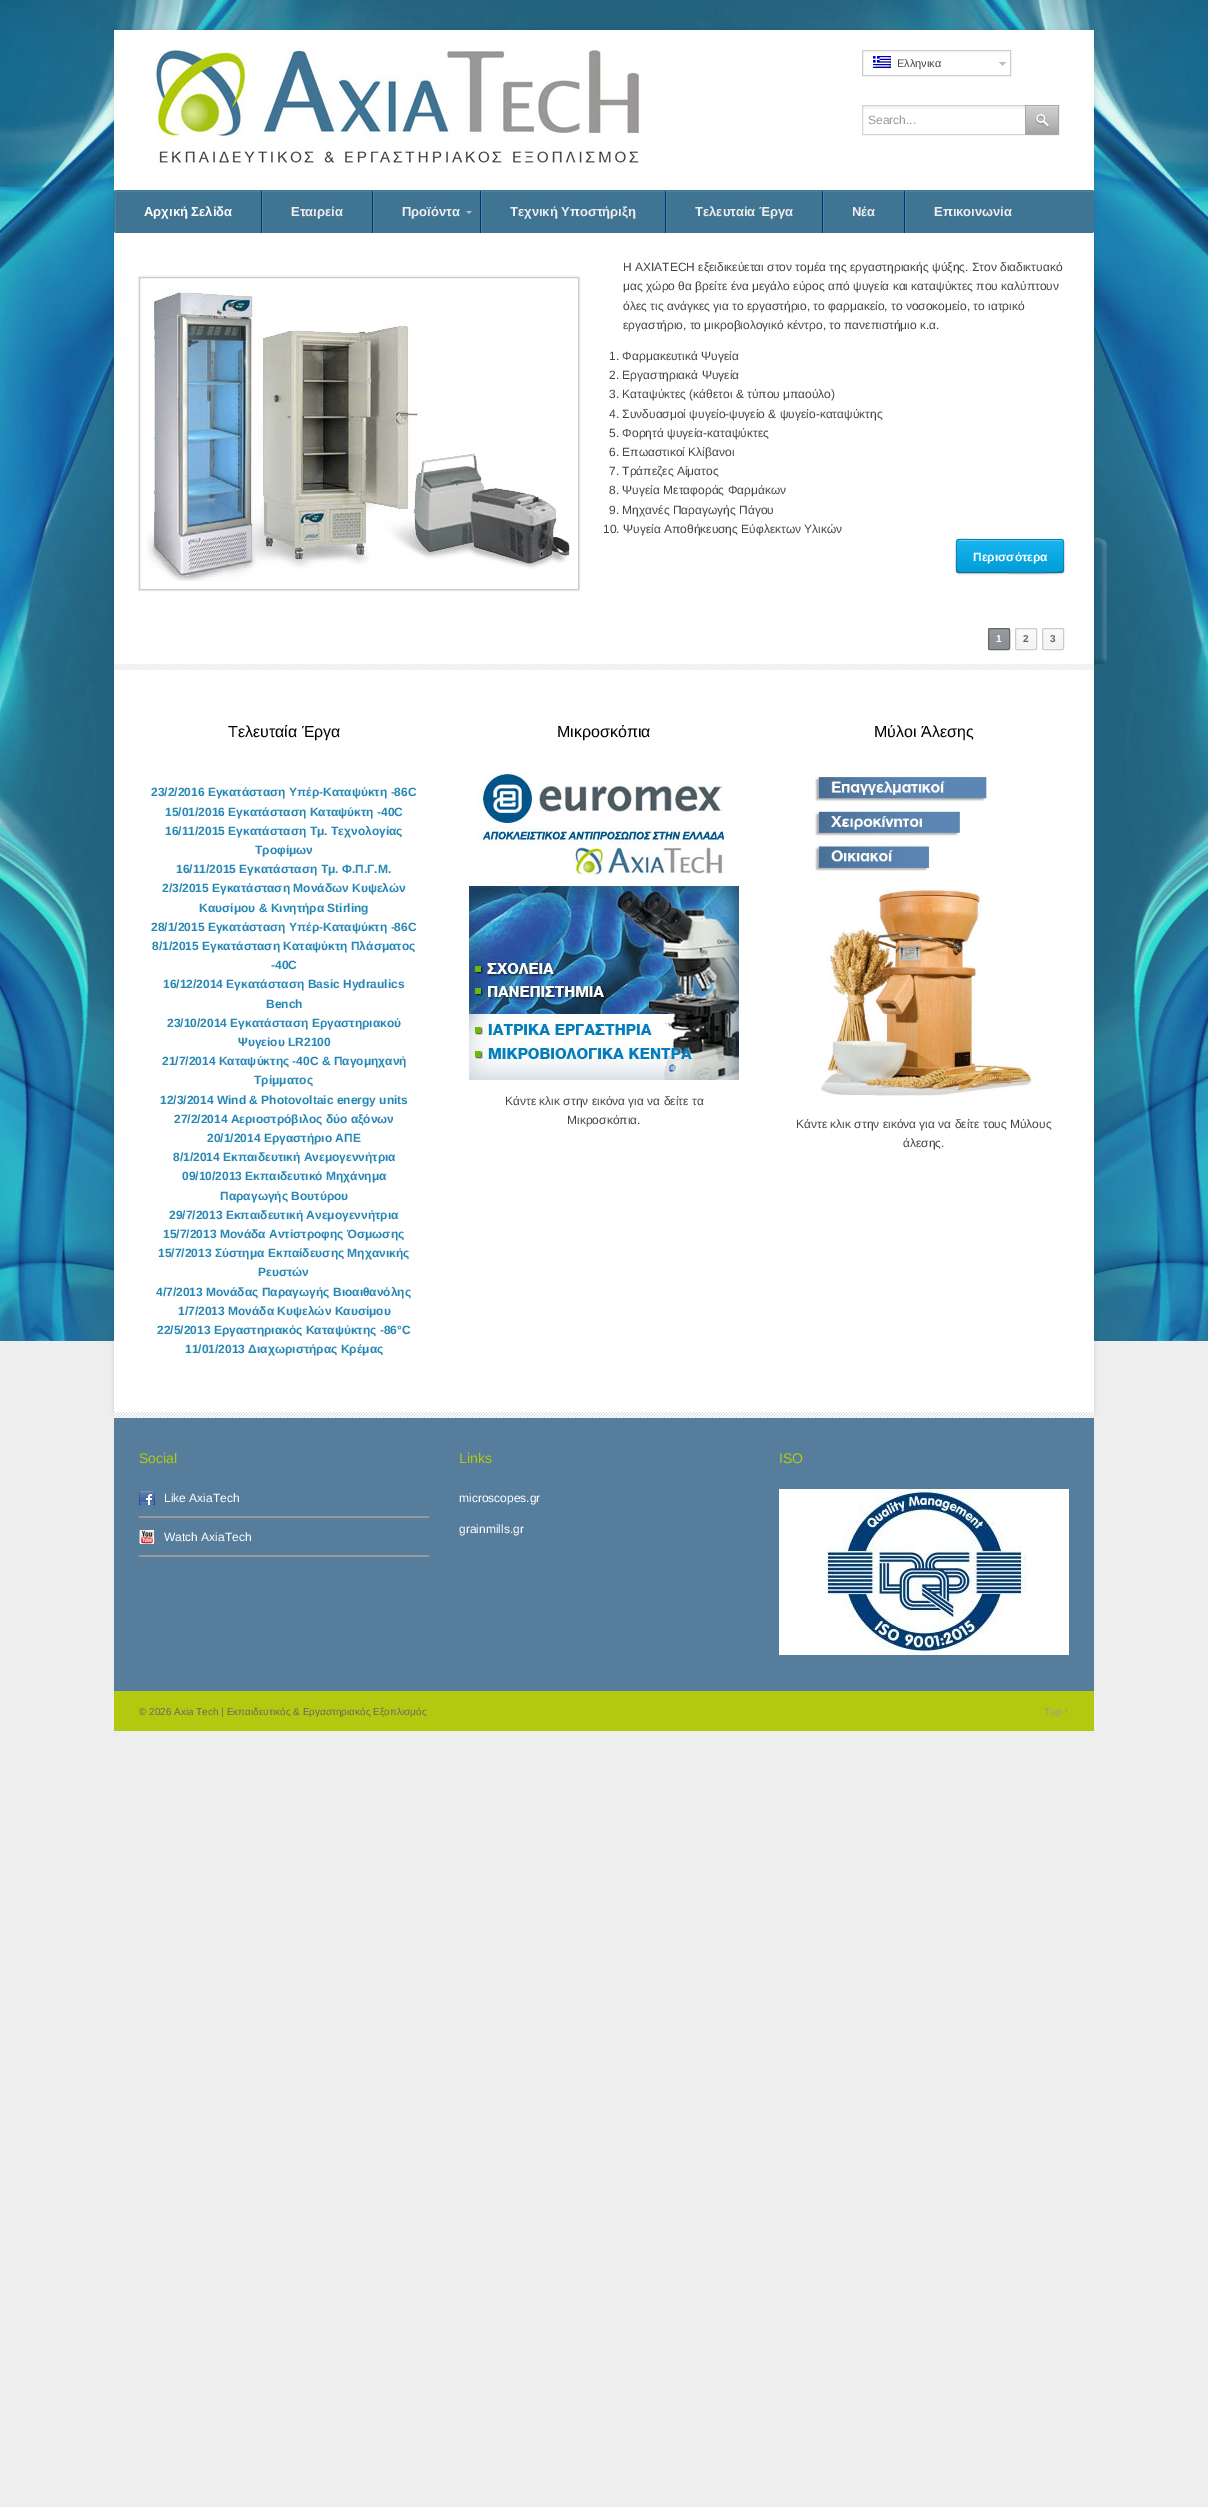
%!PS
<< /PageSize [1208 2507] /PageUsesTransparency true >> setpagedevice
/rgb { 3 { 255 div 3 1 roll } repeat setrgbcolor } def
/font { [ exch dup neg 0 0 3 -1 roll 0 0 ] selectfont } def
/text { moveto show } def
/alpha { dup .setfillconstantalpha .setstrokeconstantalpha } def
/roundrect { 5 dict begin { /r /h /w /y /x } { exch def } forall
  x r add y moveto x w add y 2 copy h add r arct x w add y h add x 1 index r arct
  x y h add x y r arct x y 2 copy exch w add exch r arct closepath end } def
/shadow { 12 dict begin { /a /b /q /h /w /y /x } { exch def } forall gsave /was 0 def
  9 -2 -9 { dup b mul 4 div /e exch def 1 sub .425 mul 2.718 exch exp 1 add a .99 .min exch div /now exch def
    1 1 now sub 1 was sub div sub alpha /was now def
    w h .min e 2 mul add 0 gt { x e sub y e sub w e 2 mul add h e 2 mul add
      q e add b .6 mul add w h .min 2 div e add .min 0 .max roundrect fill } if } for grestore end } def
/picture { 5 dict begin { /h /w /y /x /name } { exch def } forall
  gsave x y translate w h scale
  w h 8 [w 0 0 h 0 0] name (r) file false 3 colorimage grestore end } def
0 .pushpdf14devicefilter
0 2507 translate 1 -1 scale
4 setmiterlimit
238 238 238 rgb
0 0 1208 2507 rectfill
(img_01.rgb) 0 0 1208 1341 picture
0 0 0 rgb
114 30 980 1382 0 3 0.1 shadow
255 255 255 rgb
114 30 980 1388 rectfill
(img_02.rgb) 155 50 484 119 picture
(img_03.rgb) 999 62 7 4 picture
205 205 205 rgb
862.5 50.5 148 25 rectstroke
(img_04.rgb) 873 56 18 12 picture
245 244 243 rgb
862 106 163 3 rectfill
213 212 212 rgb
862.5 105.5 196 29 rectstroke
(img_05.rgb) 1025 105 34 30 picture
63 116 147 rgb
114 190 980 43 2 roundrect fill
82 130 158 rgb
116 192 moveto 976 0 rlineto 1 0 1 0 1 1 rcurveto 0 -1 rlineto -1 -1 rlineto -976 0 rlineto -1 1 rlineto 0 1 rlineto 0 -1 0 -1 1 -1 rcurveto closepath fill
62 118 145 rgb
115 190 978 1 rectfill
1093 191 1 41 rectfill
114 191 1 41 rectfill
0.1 alpha
255 255 255 rgb
115 191 1 42 rectfill
262 191 1 42 rectfill
1 alpha
0 51 117 rgb
261 191 1 42 rectfill
0.1 alpha
255 255 255 rgb
373 191 1 42 rectfill
1 alpha
0 51 117 rgb
372 191 1 42 rectfill
187 187 187 rgb
466 211 moveto 6 0 rlineto -3 3 rlineto closepath fill
0.1 alpha
255 255 255 rgb
481 191 1 42 rectfill
1 alpha
0 51 117 rgb
480 191 1 42 rectfill
0.1 alpha
255 255 255 rgb
666 191 1 42 rectfill
1 alpha
0 51 117 rgb
665 191 1 42 rectfill
0.1 alpha
255 255 255 rgb
823 191 1 42 rectfill
1 alpha
0 51 117 rgb
822 191 1 42 rectfill
0.1 alpha
255 255 255 rgb
905 191 1 42 rectfill
1 alpha
0 51 117 rgb
904 191 1 42 rectfill
(img_06.rgb) 114 664 980 6 picture
gsave
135 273 moveto 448 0 rlineto 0 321 rlineto -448 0 rlineto closepath 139 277 moveto 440 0 rlineto 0 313 rlineto -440 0 rlineto closepath eoclip newpath
204 204 204 rgb
139 277 440 313 0 1 1 shadow
grestore
204 204 204 rgb
139.5 277.5 439 312 rectstroke
(img_07.rgb) 146 290 428 291 picture
0 0 0 rgb
956 540 108 34 3 1 0.2 shadow
0 173 238 rgb
956 539 108 34 3 roundrect fill
0.1 alpha
gsave 956 539 moveto 108 0 rlineto 0 1 rlineto -108 0 rlineto closepath clip newpath
<< /ShadingType 2 /ColorSpace /DeviceRGB /Coords [1010 540 1010 508] /Extend [true true] /Function << /FunctionType 2 /Domain [0 1] /C0 [0 0 0] /C1 [1 1 1] /N 1 >> >> shfill grestore
gsave 956 540 moveto 108 0 rlineto 0 32 rlineto -108 0 rlineto closepath clip newpath
<< /ShadingType 2 /ColorSpace /DeviceRGB /Coords [1010 572 1010 540] /Extend [true true] /Function << /FunctionType 2 /Domain [0 1] /C0 [0 0 0] /C1 [1 1 1] /N 1 >> >> shfill grestore
gsave 956 572 moveto 108 0 rlineto 0 1 rlineto -108 0 rlineto closepath clip newpath
<< /ShadingType 2 /ColorSpace /DeviceRGB /Coords [1010 604 1010 572] /Extend [true true] /Function << /FunctionType 2 /Domain [0 1] /C0 [0 0 0] /C1 [1 1 1] /N 1 >> >> shfill grestore
0.4 alpha
0 0 0 rgb
1063 572 moveto -0.5 0 rlineto -2 1.5 -77.5 0.5 -86.5 0.5 rcurveto -17 0 rlineto -2 -0.5 rlineto stroke
0.2 alpha
957 572 moveto -1.5 -2 -0.5 -13.5 -0.5 -16 rcurveto 0 -21 -3.5 -16.5 19.5 -16.5 rcurveto 85 0 rlineto 3.5 0 2.5 5.5 2.5 7 rcurveto 0 14 rlineto 0 2.5 1 9.5 -0.5 11.5 rcurveto stroke
0.3 alpha
255 255 255 rgb
959 540 103 1 rectfill
1 alpha
(img_08.rgb) 988 628 22 22 picture
102 102 102 rgb
988.5 628.5 21 21 1.5 roundrect stroke
(img_09.rgb) 1015 628 22 21 picture
204 204 204 rgb
1015.5 628.5 21 21 1.5 roundrect stroke
(img_10.rgb) 1042 628 22 21 picture
1042.5 628.5 21 21 1.5 roundrect stroke
(img_11.rgb) 477 772 248 104 picture
(img_12.rgb) 469 886 270 194 picture
(img_13.rgb) 815 774 218 322 picture
(img_14.rgb) 114 1412 980 6 picture
87 125 156 rgb
114 1418 980 273 rectfill
153 152 150 rgb
139 1516 290 2 rectfill
(img_15.rgb) 139 1491 16 14 picture
139 1555 290 2 rectfill
(img_16.rgb) 139 1530 16 14 picture
(img_17.rgb) 779 1489 290 166 picture
179 201 16 rgb
114 1691 980 40 rectfill
/LiberationSans-Regular 11 font
68 68 68 rgb
(Ελληνικα) 897 67 text
/LiberationSans-Regular 12 font
153 153 153 rgb
(Search...) 868 124 text
/LiberationSans-Bold 13 font
255 255 255 rgb
(Αρχική Σελίδα) 144 216 text
238 238 238 rgb
(Εταιρεία) 291 216 text
(Προϊόντα) 402 216 text
(Τεχνική Υποστήριξη) 510 216 text
(Τελευταία Έργα) 695 216 text
(Νέα) 852 216 text
(Επικοινωνία) 934 216 text
/LiberationSans-Regular 12 font
68 68 68 rgb
(Η AXIATECH εξειδικεύεται στον τομέα της εργαστηριακής ψύξης. Στον διαδικτυακό) 623 271 text
(μας χώρο θα βρείτε ένα μεγάλο εύρος από ψυγεία και καταψύκτες που καλύπτουν) 623 290 text
(όλες τις ανάγκες για το εργαστήριο, το φαρμακείο, το νοσοκομείο, το ιατρικό) 623 310 text
(εργαστήριο, το μικροβιολογικό κέντρο, το πανεπιστήμιο κ.α.) 623 329 text
(1. Φαρμακευτικά Ψυγεία) 609 360 text
(2. Εργαστηριακά Ψυγεία) 609 379 text
(3. Καταψύκτες \(κάθετοι & τύπου μπαούλο\)) 609 398 text
(4. Συνδυασμοί ψυγείο-ψυγείο & ψυγείο-καταψύκτης) 609 418 text
(5. Φορητά ψυγεία-καταψύκτες) 609 437 text
(6. Επωαστικοί Κλίβανοι) 609 456 text
(7. Τράπεζες Αίματος) 609 475 text
(8. Ψυγεία Μεταφοράς Φαρμάκων) 609 494 text
(9. Μηχανές Παραγωγής Πάγου) 609 514 text
(10. Ψυγεία Αποθήκευσης Εύφλεκτων Υλικών) 603 533 text
/LiberationSans-Bold 12 font
255 255 255 rgb
(Περισσότερα) 973 561 text
/LiberationSans-Bold 10 font
(1) 996 642 text
102 102 102 rgb
(2) 1023 642 text
(3) 1050 642 text
/LiberationSans-Regular 16 font
0 0 0 rgb
(Τελευταία Έργα) 228 737 text
/LiberationSans-Bold 12 font
38 135 180 rgb
(23/2/2016 Εγκατάσταση Υπέρ-Καταψύκτη -86C) 151 796 text
(15/01/2016 Εγκατάσταση Καταψύκτη -40C) 165 816 text
(16/11/2015 Εγκατάσταση Τμ. Τεχνολογίας) 165 835 text
(Τροφίμων) 255 854 text
(16/11/2015 Εγκατάσταση Τμ. Φ.Π.Γ.Μ.) 176 873 text
(2/3/2015 Εγκατάσταση Μονάδων Κυψελών) 162 892 text
(Καυσίμου & Κινητήρα Stirling) 199 912 text
(28/1/2015 Εγκατάσταση Υπέρ-Καταψύκτη -86C) 151 931 text
(8/1/2015 Εγκατάσταση Καταψύκτη Πλάσματος) 152 950 text
(-40C) 271 969 text
(16/12/2014 Εγκατάσταση Basic Hydraulics) 163 988 text
(Bench) 266 1008 text
(23/10/2014 Εγκατάσταση Εργαστηριακού) 167 1027 text
(Ψυγείου LR2100) 238 1046 text
(21/7/2014 Καταψύκτης -40C & Παγομηχανή) 162 1065 text
(Τρίμματος) 254 1084 text
(12/3/2014 Wind & Photovoltaic energy units) 160 1104 text
(27/2/2014 Αεριοστρόβιλος δύο αξόνων) 174 1123 text
(20/1/2014 Εργαστήριο ΑΠΕ) 207 1142 text
(8/1/2014 Εκπαιδευτική Ανεμογεννήτρια) 173 1161 text
(09/10/2013 Εκπαιδευτικό Μηχάνημα) 182 1180 text
(Παραγωγής Βουτύρου) 220 1200 text
(29/7/2013 Εκπαιδευτική Ανεμογεννήτρια) 169 1219 text
(15/7/2013 Μονάδα Αντίστροφης Όσμωσης) 163 1238 text
(15/7/2013 Σύστημα Εκπαίδευσης Μηχανικής) 158 1257 text
(Ρευστών) 258 1276 text
(4/7/2013 Μονάδας Παραγωγής Βιοαιθανόλης) 156 1296 text
(1/7/2013 Μονάδα Κυψελών Καυσίμου) 178 1315 text
(22/5/2013 Εργαστηριακός Καταψύκτης -86°C) 157 1334 text
(11/01/2013 Διαχωριστήρας Κρέμας) 185 1353 text
/LiberationSans-Regular 16 font
0 0 0 rgb
(Μικροσκόπια) 557 737 text
/LiberationSans-Regular 12 font
68 68 68 rgb
(Κάντε κλικ στην εικόνα για να δείτε τα) 505 1105 text
(Μικροσκόπια.) 567 1124 text
/LiberationSans-Regular 16 font
0 0 0 rgb
(Μύλοι Άλεσης) 874 737 text
/LiberationSans-Regular 12 font
68 68 68 rgb
(Κάντε κλικ στην εικόνα για να δείτε τους Μύλους) 796 1128 text
(άλεσης.) 903 1147 text
/LiberationSans-Regular 14 font
179 201 16 rgb
(Social) 139 1463 text
/LiberationSans-Regular 12 font
255 255 255 rgb
(Like AxiaTech) 164 1502 text
(Watch AxiaTech) 164 1541 text
/LiberationSans-Regular 14 font
179 201 16 rgb
(Links) 459 1463 text
/LiberationSans-Regular 12 font
255 255 255 rgb
(microscopes.gr) 459 1502 text
(grainmills.gr) 459 1533 text
/LiberationSans-Regular 14 font
179 201 16 rgb
(ISO) 779 1463 text
/LiberationSans-Regular 10 font
102 102 102 rgb
(© 2026 Axia Tech | Εκπαιδευτικός & Εργαστηριακός Εξοπλισμός) 139 1715 text
153 153 153 rgb
(Top ↑) 1044 1715 text
.poppdf14devicefilter showpage
